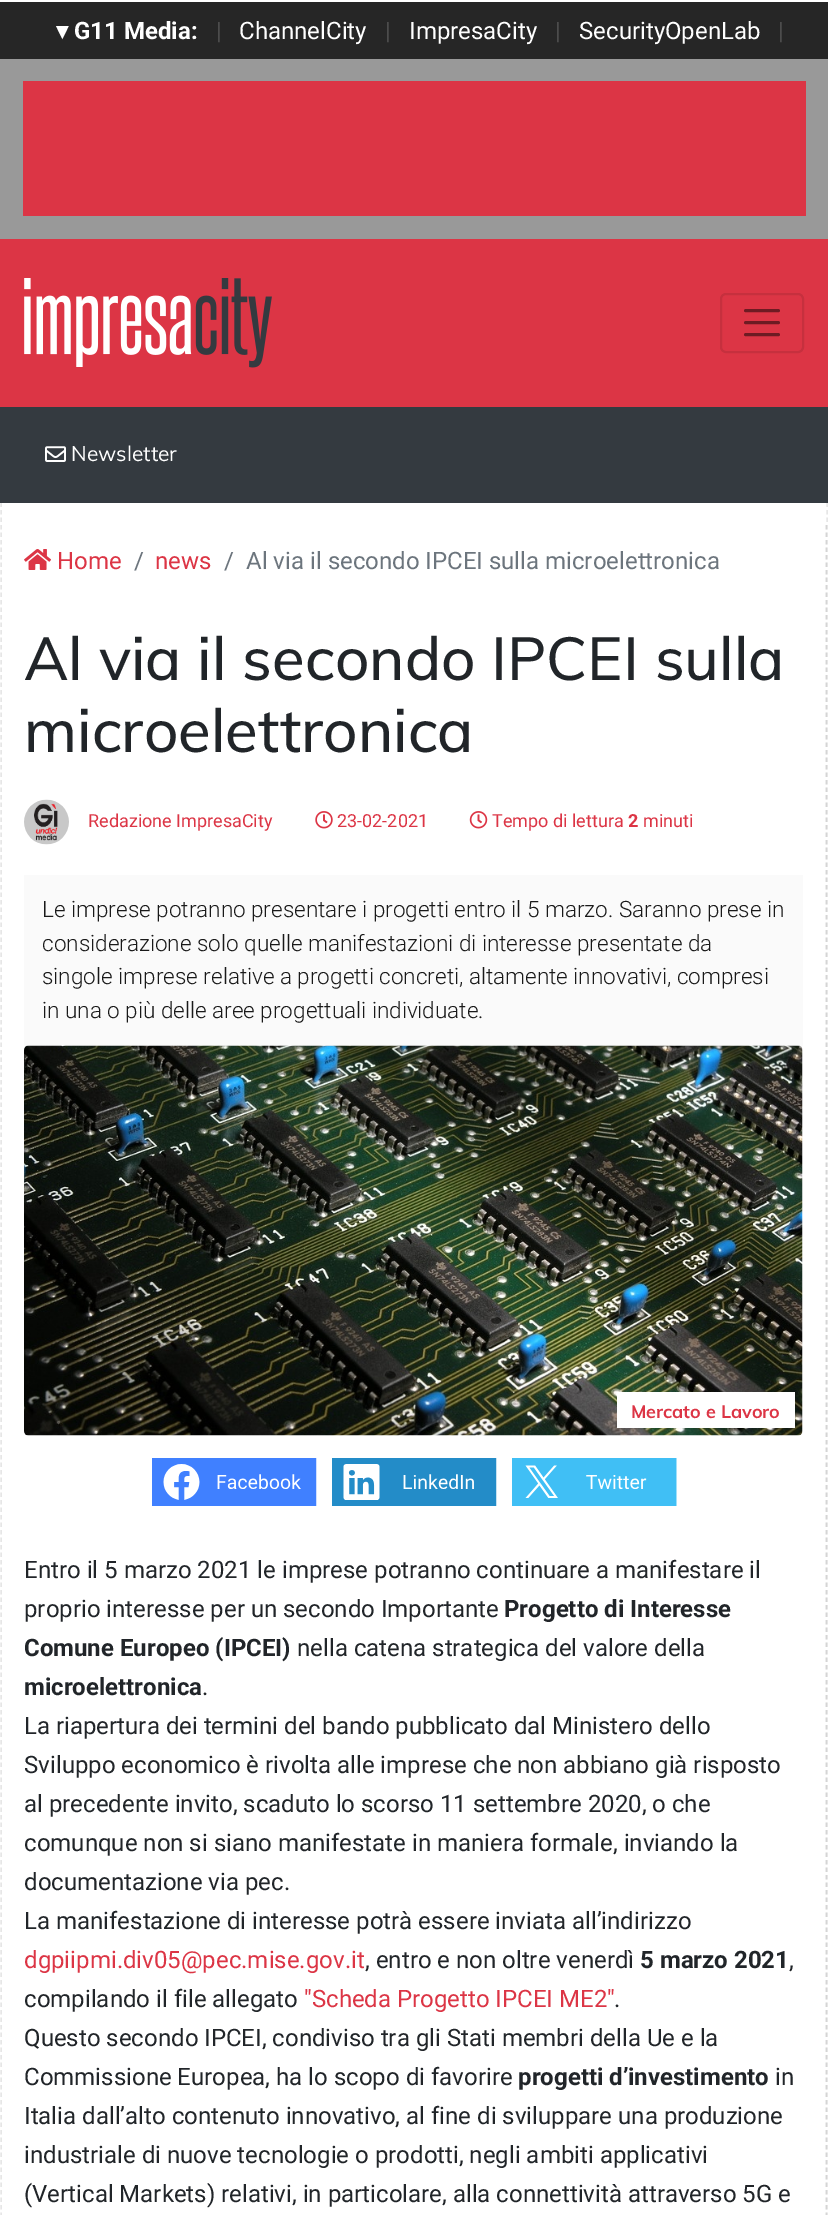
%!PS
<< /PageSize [828 2215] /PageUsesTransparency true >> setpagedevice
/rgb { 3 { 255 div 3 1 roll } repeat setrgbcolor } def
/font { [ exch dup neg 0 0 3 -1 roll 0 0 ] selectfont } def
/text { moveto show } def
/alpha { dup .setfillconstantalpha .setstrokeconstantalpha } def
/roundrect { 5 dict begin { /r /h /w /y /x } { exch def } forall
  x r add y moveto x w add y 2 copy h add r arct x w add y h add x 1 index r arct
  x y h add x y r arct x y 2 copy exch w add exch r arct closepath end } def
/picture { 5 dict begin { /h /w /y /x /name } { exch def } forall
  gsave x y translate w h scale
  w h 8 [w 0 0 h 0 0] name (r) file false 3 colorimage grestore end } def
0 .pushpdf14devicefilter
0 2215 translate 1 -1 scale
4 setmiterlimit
255 255 255 rgb
0 0 828 2215 rectfill
38 38 38 rgb
0 2 828 57 rectfill
153 153 153 rgb
0 59 828 180 rectfill
220 53 69 rgb
23 81 783 135 rectfill
0 239 828 168 rectfill
(img_01.rgb) 24 278 248 90 picture
198 48 62 rgb
2 setlinewidth
721 294 82 58 5 roundrect stroke
110 27 35 rgb
3 setlinewidth
1 setlinecap
745.5 310.5 moveto 33 0 rlineto 745.5 322.5 moveto 33 0 rlineto 745.5 334.5 moveto 33 0 rlineto stroke
230 230 230 rgb
1.5 setlinewidth
0 setlinecap
[4.5 3] 0 setdash
827 502.5 moveto 0 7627.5 rlineto stroke
1 502.5 moveto 0 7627.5 rlineto stroke
52 58 64 rgb
0 407 828 96 rectfill
(img_02.rgb) 45 446 21 16 picture
0.1 alpha
0 0 0 rgb
826 525 moveto 0 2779.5 rlineto stroke
1 alpha
(img_03.rgb) 24 549 27 21 picture
(img_04.rgb) 24 799 45 46 picture
(img_05.rgb) 315 811 18 18 picture
(img_06.rgb) 469 811 19 18 picture
250 250 250 rgb
24 875 779 171 rectfill
(img_07.rgb) 24 1045 779 391 picture
255 255 255 rgb
617 1392 178 36 rectfill
(img_08.rgb) 152 1458 165 48 picture
(img_09.rgb) 332 1458 165 48 picture
(img_10.rgb) 512 1458 165 48 picture
/DejaVuSans-Bold 24 font
(▾) 56 39 text
/Roboto-Bold 24 font
(G11 Media:) 74 39 text
/Roboto-Regular 24 font
76 76 76 rgb
(|) 216 39 text
255 255 255 rgb
(ChannelCity) 239 39 text
76 76 76 rgb
(|) 385 39 text
255 255 255 rgb
(ImpresaCity) 409 39 text
76 76 76 rgb
(|) 555 39 text
255 255 255 rgb
(SecurityOpenLab) 579 39 text
76 76 76 rgb
(|) 778 39 text
/Muli-Regular 21 font
255 255 255 rgb
(Newsletter) 71 461 text
/Roboto-Regular 24 font
220 53 69 rgb
(Home) 57 569 text
108 117 125 rgb
(/) 134 569 text
220 53 69 rgb
(news) 155 569 text
108 117 125 rgb
(/) 224 569 text
(Al via il secondo IPCEI sulla microelettronica) 246 569 text
/Muli-Medium 60 font
33 37 41 rgb
(Al via il secondo IPCEI sulla) 24 680 text
(microelettronica) 24 752 text
/Roboto-Regular 18 font
220 53 69 rgb
(Redazione ImpresaCity) 88 827 text
(23-02-2021) 337 827 text
(Tempo di lettura) 492 827 text
/Roboto-Bold 18 font
(2) 628 827 text
/Roboto-Regular 18 font
(minuti) 643 827 text
/Roboto-Light 22.5 font
25 25 25 rgb
(Le imprese potranno presentare i progetti entro il 5 marzo. Saranno prese in) 42 917 text
(considerazione solo quelle manifestazioni di interesse presentate da) 42 951 text
(singole imprese relative a progetti concreti, altamente innovativi, compresi) 42 984 text
(in una o più delle aree progettuali individuate.) 42 1018 text
/Muli-Bold 18 font
220 53 69 rgb
(Mercato e Lavoro) 631 1418 text
/Roboto-Regular 24 font
33 37 41 rgb
(Entro il 5 marzo 2021 le imprese potranno continuare a manifestare il) 24 1578 text
(proprio interesse per un secondo Importante) 24 1617 text
/Roboto-Bold 24 font
(Progetto di Interesse) 504 1617 text
(Comune Europeo \(IPCEI\)) 24 1656 text
/Roboto-Regular 24 font
(nella catena strategica del valore della) 297 1656 text
/Roboto-Bold 24 font
(microelettronica) 24 1695 text
/Roboto-Regular 24 font
(.) 202 1695 text
(La riapertura dei termini del bando pubblicato dal Ministero dello) 24 1734 text
(Sviluppo economico è rivolta alle imprese che non abbiano già risposto) 24 1773 text
(al precedente invito, scaduto lo scorso 11 settembre 2020, o che) 24 1812 text
(comunque non si siano manifestate in maniera formale, inviando la) 24 1851 text
(documentazione via pec.) 24 1890 text
(La manifestazione di interesse potrà essere inviata all’indirizzo) 24 1929 text
220 53 69 rgb
(dgpiipmi.div05@pec.mise.gov.it) 24 1968 text
33 37 41 rgb
(, entro e non oltre venerdì) 365 1968 text
/Roboto-Bold 24 font
(5 marzo 2021) 640 1968 text
/Roboto-Regular 24 font
(,) 789 1968 text
(compilando il file allegato) 24 2007 text
220 53 69 rgb
("Scheda Progetto IPCEI ME2") 304 2007 text
33 37 41 rgb
(.) 614 2007 text
(Questo secondo IPCEI, condiviso tra gli Stati membri della Ue e la) 24 2046 text
(Commissione Europea, ha lo scopo di favorire) 24 2085 text
/Roboto-Bold 24 font
(progetti d’investimento) 518 2085 text
/Roboto-Regular 24 font
(in) 775 2085 text
(Italia dall’alto contenuto innovativo, al fine di sviluppare una produzione) 24 2124 text
(industriale di nuove tecnologie o prodotti, negli ambiti applicativi) 24 2163 text
(\(Vertical Markets\) relativi, in particolare, alla connettività attraverso 5G e) 24 2202 text
.poppdf14devicefilter showpage
